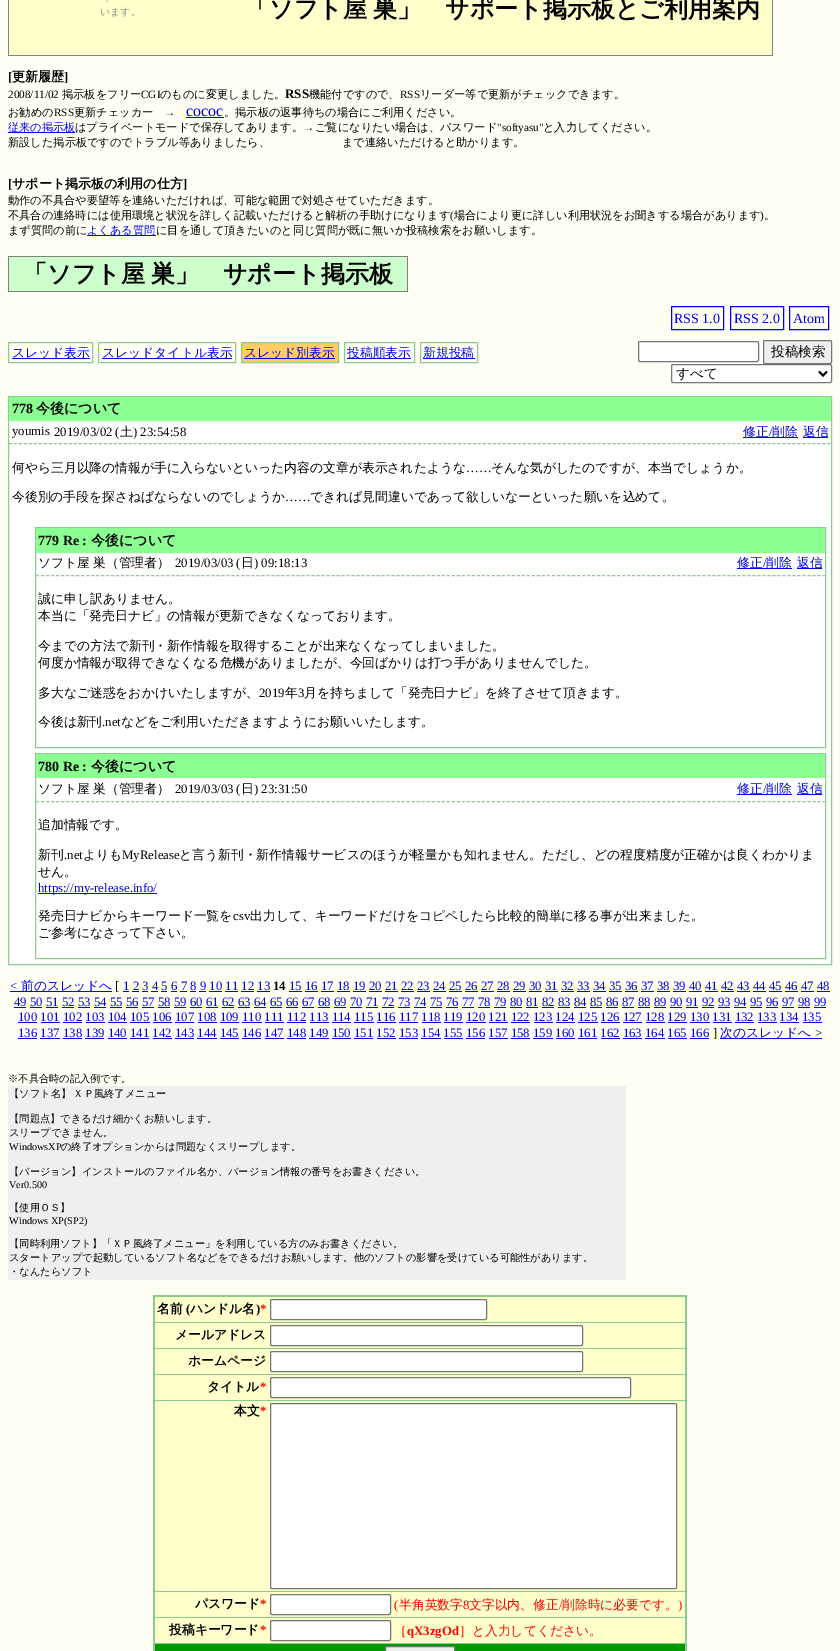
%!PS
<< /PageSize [840 1651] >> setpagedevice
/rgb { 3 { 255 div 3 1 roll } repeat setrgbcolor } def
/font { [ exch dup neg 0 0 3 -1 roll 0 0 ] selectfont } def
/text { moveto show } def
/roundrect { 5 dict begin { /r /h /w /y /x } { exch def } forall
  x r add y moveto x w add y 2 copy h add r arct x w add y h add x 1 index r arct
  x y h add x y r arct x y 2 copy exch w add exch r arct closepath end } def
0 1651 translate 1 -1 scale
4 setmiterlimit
255 255 246 rgb
0 0 840 1651 rectfill
255 255 204 rgb
9 0 763 55 rectfill
128 128 128 rgb
772 0 1 56 rectfill
8 55 765 1 rectfill
8 0 1 56 rectfill
0 0 238 rgb
186 117 38 1 rectfill
8 132 67 1 rectfill
87 235 69 1 rectfill
204 255 204 rgb
9 257 398 34 rectfill
128 128 128 rgb
8 256 400 1 rectfill
407 256 1 36 rectfill
8 291 400 1 rectfill
8 256 1 36 rectfill
0 0 255 rgb
671.5 306.5 52 23 rectstroke
730.5 306.5 53 23 rectstroke
789.5 306.5 39 23 rectstroke
139 204 145 rgb
8.5 342.5 84 20 rectstroke
0 0 238 rgb
12 358 78 1 rectfill
139 204 145 rgb
98.5 342.5 137 20 rectstroke
0 0 238 rgb
102 358 130 1 rectfill
255 204 102 rgb
241.5 342.5 moveto 97 0 rlineto 0 20 rlineto -97 0 rlineto closepath gsave fill grestore
139 204 145 rgb
stroke
0 0 238 rgb
244 358 91 1 rectfill
139 204 145 rgb
344.5 342.5 70 20 rectstroke
0 0 238 rgb
347 358 64 1 rectfill
139 204 145 rgb
420.5 342.5 57 20 rectstroke
0 0 238 rgb
423 358 52 1 rectfill
255 255 255 rgb
638.5 341.5 120 20 1.5 roundrect gsave fill grestore
118 118 118 rgb
stroke
239 239 239 rgb
763.5 340.5 68 23 1.5 roundrect gsave fill grestore
118 118 118 rgb
stroke
255 255 255 rgb
671.5 364.5 160 18 1.5 roundrect gsave fill grestore
118 118 118 rgb
stroke
0 0 0 rgb
2 setlinewidth
819 371.5 moveto 4 4 rlineto 4 -4 rlineto stroke
255 255 255 rgb
9 421 822 543 rectfill
139 204 145 rgb
1 setlinewidth
8.5 396.5 823 568 rectstroke
139 255 145 rgb
9 397 822 24 rectfill
0 0 238 rgb
743 437 55 1 rectfill
803 437 25 1 rectfill
139 204 145 rgb
[3 1.99] 0 setdash
9 443.5 moveto 822 0 rlineto stroke
[] 0 setdash
35.5 527.5 790 220 rectstroke
139 255 145 rgb
36 528 789 25 rectfill
0 0 238 rgb
737 568 55 1 rectfill
797 568 25 1 rectfill
139 204 145 rgb
[3 2.01] 0 setdash
36 575.5 moveto 789 0 rlineto stroke
[] 0 setdash
35.5 753.5 790 205 rectstroke
139 255 145 rgb
36 754 789 24 rectfill
0 0 238 rgb
737 794 55 1 rectfill
797 794 25 1 rectfill
139 204 145 rgb
[3 2.01] 0 setdash
36 801.5 moveto 789 0 rlineto stroke
0 0 238 rgb
38 893 119 1 rectfill
10 991 102 1 rectfill
123 991 6 1 rectfill
289 991 13 1 rectfill
132 991 7 1 rectfill
142 991 6 1 rectfill
151 991 7 1 rectfill
161 991 6 1 rectfill
171 991 6 1 rectfill
180 991 7 1 rectfill
190 991 6 1 rectfill
199 991 7 1 rectfill
209 991 13 1 rectfill
225 991 13 1 rectfill
241 991 13 1 rectfill
257 991 13 1 rectfill
305 991 13 1 rectfill
321 991 13 1 rectfill
337 991 13 1 rectfill
353 991 13 1 rectfill
369 991 13 1 rectfill
385 991 13 1 rectfill
401 991 13 1 rectfill
417 991 13 1 rectfill
433 991 13 1 rectfill
449 991 13 1 rectfill
465 991 13 1 rectfill
481 991 13 1 rectfill
497 991 13 1 rectfill
513 991 13 1 rectfill
529 991 13 1 rectfill
545 991 13 1 rectfill
561 991 13 1 rectfill
577 991 13 1 rectfill
593 991 13 1 rectfill
609 991 13 1 rectfill
625 991 13 1 rectfill
641 991 13 1 rectfill
657 991 13 1 rectfill
673 991 13 1 rectfill
689 991 13 1 rectfill
705 991 13 1 rectfill
721 991 13 1 rectfill
737 991 13 1 rectfill
753 991 13 1 rectfill
769 991 13 1 rectfill
785 991 13 1 rectfill
801 991 13 1 rectfill
817 991 13 1 rectfill
14 1007 12 1 rectfill
30 1007 12 1 rectfill
46 1007 12 1 rectfill
62 1007 12 1 rectfill
78 1007 12 1 rectfill
94 1007 12 1 rectfill
110 1007 12 1 rectfill
126 1007 12 1 rectfill
142 1007 12 1 rectfill
158 1007 12 1 rectfill
174 1007 12 1 rectfill
190 1007 12 1 rectfill
206 1007 12 1 rectfill
222 1007 12 1 rectfill
238 1007 12 1 rectfill
254 1007 12 1 rectfill
270 1007 12 1 rectfill
286 1007 12 1 rectfill
302 1007 12 1 rectfill
318 1007 12 1 rectfill
334 1007 12 1 rectfill
350 1007 12 1 rectfill
366 1007 12 1 rectfill
382 1007 12 1 rectfill
398 1007 12 1 rectfill
414 1007 12 1 rectfill
430 1007 12 1 rectfill
446 1007 12 1 rectfill
462 1007 12 1 rectfill
478 1007 12 1 rectfill
494 1007 12 1 rectfill
510 1007 12 1 rectfill
526 1007 12 1 rectfill
542 1007 12 1 rectfill
558 1007 12 1 rectfill
574 1007 12 1 rectfill
590 1007 12 1 rectfill
606 1007 12 1 rectfill
622 1007 12 1 rectfill
638 1007 12 1 rectfill
654 1007 12 1 rectfill
670 1007 12 1 rectfill
686 1007 12 1 rectfill
702 1007 12 1 rectfill
718 1007 12 1 rectfill
734 1007 12 1 rectfill
750 1007 12 1 rectfill
766 1007 12 1 rectfill
782 1007 12 1 rectfill
798 1007 12 1 rectfill
814 1007 12 1 rectfill
18 1022 19 1 rectfill
41 1022 19 1 rectfill
63 1022 19 1 rectfill
86 1022 19 1 rectfill
108 1022 19 1 rectfill
130 1022 20 1 rectfill
153 1022 19 1 rectfill
175 1022 19 1 rectfill
198 1022 19 1 rectfill
220 1022 19 1 rectfill
242 1022 20 1 rectfill
265 1022 19 1 rectfill
287 1022 19 1 rectfill
310 1022 19 1 rectfill
332 1022 19 1 rectfill
354 1022 20 1 rectfill
377 1022 19 1 rectfill
399 1022 19 1 rectfill
422 1022 19 1 rectfill
444 1022 19 1 rectfill
466 1022 20 1 rectfill
489 1022 19 1 rectfill
511 1022 19 1 rectfill
534 1022 19 1 rectfill
556 1022 19 1 rectfill
578 1022 20 1 rectfill
601 1022 19 1 rectfill
623 1022 19 1 rectfill
646 1022 19 1 rectfill
668 1022 19 1 rectfill
690 1022 20 1 rectfill
713 1022 19 1 rectfill
735 1022 19 1 rectfill
758 1022 19 1 rectfill
780 1022 19 1 rectfill
803 1022 19 1 rectfill
18 1038 19 1 rectfill
720 1038 102 1 rectfill
40 1038 20 1 rectfill
63 1038 19 1 rectfill
85 1038 19 1 rectfill
108 1038 19 1 rectfill
130 1038 19 1 rectfill
153 1038 19 1 rectfill
175 1038 19 1 rectfill
197 1038 20 1 rectfill
220 1038 19 1 rectfill
242 1038 19 1 rectfill
265 1038 19 1 rectfill
287 1038 19 1 rectfill
309 1038 20 1 rectfill
332 1038 19 1 rectfill
354 1038 19 1 rectfill
377 1038 19 1 rectfill
399 1038 19 1 rectfill
421 1038 20 1 rectfill
444 1038 19 1 rectfill
466 1038 19 1 rectfill
489 1038 19 1 rectfill
511 1038 19 1 rectfill
533 1038 20 1 rectfill
556 1038 19 1 rectfill
578 1038 19 1 rectfill
601 1038 19 1 rectfill
623 1038 19 1 rectfill
645 1038 20 1 rectfill
668 1038 19 1 rectfill
690 1038 19 1 rectfill
239 239 239 rgb
8 1086 618 194 rectfill
139 204 145 rgb
153 1295 534 2 rectfill
685 1295 2 356 rectfill
153 1295 2 356 rectfill
255 255 204 rgb
155 1297 530 25 rectfill
139 204 145 rgb
155 1322 530 1 rectfill
255 255 255 rgb
270.5 1299.5 216 20 1.5 roundrect gsave fill grestore
118 118 118 rgb
[] 0 setdash
stroke
255 255 204 rgb
155 1323 530 25 rectfill
139 204 145 rgb
155 1348 530 1 rectfill
255 255 255 rgb
270.5 1325.5 312 20 1.5 roundrect gsave fill grestore
118 118 118 rgb
stroke
255 255 204 rgb
155 1349 530 25 rectfill
139 204 145 rgb
155 1374 530 1 rectfill
255 255 255 rgb
270.5 1351.5 312 20 1.5 roundrect gsave fill grestore
118 118 118 rgb
stroke
255 255 204 rgb
155 1375 530 25 rectfill
139 204 145 rgb
155 1400 530 1 rectfill
255 255 255 rgb
270.5 1377.5 360 20 1.5 roundrect gsave fill grestore
118 118 118 rgb
stroke
255 255 204 rgb
155 1401 530 190 rectfill
139 204 145 rgb
155 1591 530 1 rectfill
255 255 255 rgb
270.5 1403.5 406 185 1.5 roundrect gsave fill grestore
118 118 118 rgb
stroke
255 255 204 rgb
155 1592 530 25 rectfill
139 204 145 rgb
155 1617 530 1 rectfill
255 255 255 rgb
270.5 1594.5 120 20 1.5 roundrect gsave fill grestore
118 118 118 rgb
stroke
255 255 204 rgb
155 1618 530 25 rectfill
139 204 145 rgb
155 1643 530 1 rectfill
255 255 255 rgb
270.5 1620.5 120 20 1.5 roundrect gsave fill grestore
118 118 118 rgb
stroke
0 153 0 rgb
155 1644 530 7 rectfill
239 239 239 rgb
385.5 1646.5 69 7 1.5 roundrect gsave fill grestore
118 118 118 rgb
stroke
/WenQuanYiZenHei-Medium 10 font
144 144 144 rgb
(、) 105 1 text
(います。) 100 15 text
/WenQuanYiZenHei-Bold 24 font
0 0 0 rgb
(「ソフト屋) 245 17 text
(巣」　サポート掲示板とご利用案内) 373 17 text
/LiberationSerif-Bold 13 font
([) 8 81 text
/WenQuanYiZenHei-Bold 13 font
(更新履歴) 12 81 text
/LiberationSerif-Bold 13 font
(]) 64 81 text
/LiberationSerif-Regular 11.2 font
(2008/11/02) 8 98 text
/WenQuanYiZenHei-Medium 11.2 font
(掲示板をフリー) 62 98 text
/LiberationSerif-Regular 11.2 font
(CGI) 141 98 text
/WenQuanYiZenHei-Medium 11.2 font
(のものに変更しました。) 160 98 text
/LiberationSerif-Bold 13 font
(RSS) 285 98 text
/WenQuanYiZenHei-Medium 11.2 font
(機能付ですので、) 309 98 text
/LiberationSerif-Regular 11.2 font
(RSS) 400 98 text
/WenQuanYiZenHei-Medium 11.2 font
(リーダー等で更新がチェックできます。) 420 98 text
(お勧めの) 8 116 text
/LiberationSerif-Regular 11.2 font
(RSS) 54 116 text
/WenQuanYiZenHei-Medium 11.2 font
(更新チェッカー) 74 116 text
/LiberationSerif-Regular 11.2 font
(→) 164 116 text
/LiberationSerif-Regular 16 font
0 0 238 rgb
(cococ) 186 116 text
/WenQuanYiZenHei-Medium 11.2 font
0 0 0 rgb
(。掲示板の返事待ちの場合にご利用ください。) 224 116 text
0 0 238 rgb
(従来の掲示板) 8 131 text
0 0 0 rgb
(はプライベートモードで保存してあります。) 75 131 text
/LiberationSerif-Regular 11.2 font
(→) 303 131 text
/WenQuanYiZenHei-Medium 11.2 font
(ご覧になりたい場合は、パスワード) 315 131 text
/LiberationSerif-Regular 11.2 font
("softyasu") 497 131 text
/WenQuanYiZenHei-Medium 11.2 font
(と入力してください。) 543 131 text
(新設した掲示板ですのでトラブル等ありましたら、) 8 146 text
(まで連絡いただけると助かります。) 342 146 text
/LiberationSerif-Bold 13 font
([) 8 188 text
/WenQuanYiZenHei-Bold 13 font
(サポート掲示板の利用の仕方) 12 188 text
/LiberationSerif-Bold 13 font
(]) 183 188 text
/WenQuanYiZenHei-Medium 11.2 font
(動作の不具合や要望等を連絡いただければ、可能な範囲で対処させていただきます。) 8 204 text
(不具合の連絡時には使用環境と状況を詳しく記載いただけると解析の手助けになります) 8 219 text
/LiberationSerif-Regular 11.2 font
(\() 450 219 text
/WenQuanYiZenHei-Medium 11.2 font
(場合により更に詳しい利用状況をお聞きする場合があります) 454 219 text
/LiberationSerif-Regular 11.2 font
(\)) 760 219 text
/WenQuanYiZenHei-Medium 11.2 font
(。) 764 219 text
(まず質問の前に) 8 234 text
0 0 238 rgb
(よくある質問) 87 234 text
0 0 0 rgb
(に目を通して頂きたいのと同じ質問が既に無いか投稿検索をお願いします。) 156 234 text
/WenQuanYiZenHei-Bold 24 font
23 282 moveto -1 0 32 (「ソフト屋 巣」　サポート掲示板) widthshow
/LiberationSerif-Regular 14 font
0 0 238 rgb
(RSS 1.0) 674 323 text
(RSS 2.0) 734 323 text
(Atom) 793 323 text
/WenQuanYiZenHei-Medium 12.8 font
(スレッド表示) 12 357 text
(スレッドタイトル表示) 102 357 text
(スレッド別表示) 244 357 text
(投稿順表示) 347 357 text
(新規投稿) 423 357 text
/WenQuanYiZenHei-Medium 13.5 font
0 0 0 rgb
(投稿検索) 771 356 text
(すべて) 676 378 text
/LiberationSerif-Bold 14 font
(778) 12 413 text
/WenQuanYiZenHei-Bold 14 font
(今後について) 36 413 text
/LiberationSerif-Regular 12.8 font
(youmis) 12 435 text
(2019/03/02 \() 54 436 text
/WenQuanYiZenHei-Medium 12.8 font
(土) 120 436 text
/LiberationSerif-Regular 12.8 font
(\) 23:54:58) 133 436 text
/WenQuanYiZenHei-Medium 12.8 font
0 0 238 rgb
(修正) 743 436 text
/LiberationSerif-Regular 12.8 font
(/) 769 436 text
/WenQuanYiZenHei-Medium 12.8 font
(削除) 772 436 text
(返信) 803 436 text
0 0 0 rgb
(何やら三月以降の情報が手に入らないといった内容の文章が表示されたような) 12 472 text
/LiberationSerif-Regular 12.8 font
(……) 466 472 text
/WenQuanYiZenHei-Medium 12.8 font
(そんな気がしたのですが、本当でしょうか。) 491 472 text
(今後別の手段を探さねばならないのでしょうか) 12 501 text
/LiberationSerif-Regular 12.8 font
(……) 285 501 text
/WenQuanYiZenHei-Medium 12.8 font
(できれば見間違いであって欲しいなーといった願いを込めて。) 310 501 text
/LiberationSerif-Bold 14 font
(779 Re :) 38 545 text
/WenQuanYiZenHei-Bold 14 font
(今後について) 91 545 text
/WenQuanYiZenHei-Medium 12.8 font
38 567 moveto -1 0 32 (ソフト屋 巣（管理者）) widthshow
/LiberationSerif-Regular 12.8 font
(2019/03/03 \() 175 567 text
/WenQuanYiZenHei-Medium 12.8 font
(日) 241 567 text
/LiberationSerif-Regular 12.8 font
(\) 09:18:13) 254 567 text
/WenQuanYiZenHei-Medium 12.8 font
0 0 238 rgb
(修正) 737 567 text
/LiberationSerif-Regular 12.8 font
(/) 763 567 text
/WenQuanYiZenHei-Medium 12.8 font
(削除) 766 567 text
(返信) 797 567 text
0 0 0 rgb
(誠に申し訳ありません。) 38 603 text
(本当に「発売日ナビ」の情報が更新できなくなっております。) 38 620 text
(今までの方法で新刊・新作情報を取得することが出来なくなってしまいました。) 38 650 text
(何度か情報が取得できなくなる危機がありましたが、今回ばかりは打つ手がありませんでした。) 38 667 text
(多大なご迷惑をおかけいたしますが、) 38 697 text
/LiberationSerif-Regular 12.8 font
(2019) 259 697 text
/WenQuanYiZenHei-Medium 12.8 font
(年) 285 697 text
/LiberationSerif-Regular 12.8 font
(3) 298 697 text
/WenQuanYiZenHei-Medium 12.8 font
(月を持ちまして「発売日ナビ」を終了させて頂きます。) 304 697 text
(今後は新刊) 38 726 text
/LiberationSerif-Regular 12.8 font
(.net) 102 726 text
/WenQuanYiZenHei-Medium 12.8 font
(などをご利用いただきますようにお願いいたします。) 121 726 text
/LiberationSerif-Bold 14 font
(780 Re :) 38 771 text
/WenQuanYiZenHei-Bold 14 font
(今後について) 91 771 text
/WenQuanYiZenHei-Medium 12.8 font
38 793 moveto -1 0 32 (ソフト屋 巣（管理者）) widthshow
/LiberationSerif-Regular 12.8 font
(2019/03/03 \() 175 793 text
/WenQuanYiZenHei-Medium 12.8 font
(日) 241 793 text
/LiberationSerif-Regular 12.8 font
(\) 23:31:50) 254 793 text
/WenQuanYiZenHei-Medium 12.8 font
0 0 238 rgb
(修正) 737 793 text
/LiberationSerif-Regular 12.8 font
(/) 763 793 text
/WenQuanYiZenHei-Medium 12.8 font
(削除) 766 793 text
(返信) 797 793 text
0 0 0 rgb
(追加情報です。) 38 829 text
(新刊) 38 859 text
/LiberationSerif-Regular 12.8 font
(.net) 64 859 text
/WenQuanYiZenHei-Medium 12.8 font
(よりも) 83 859 text
/LiberationSerif-Regular 12.8 font
(MyRelease) 122 859 text
/WenQuanYiZenHei-Medium 12.8 font
(と言う新刊・新作情報サービスのほうが軽量かも知れません。ただし、どの程度精度が正確かは良くわかりま) 179 859 text
(せん。) 38 876 text
/LiberationSerif-Regular 12.8 font
0 0 238 rgb
(https://my-release.info/) 38 892 text
/WenQuanYiZenHei-Medium 12.8 font
0 0 0 rgb
(発売日ナビからキーワード一覧を) 38 920 text
/LiberationSerif-Regular 12.8 font
(csv) 233 920 text
/WenQuanYiZenHei-Medium 12.8 font
(出力して、キーワードだけをコピペしたら比較的簡単に移る事が出来ました。) 250 920 text
(ご参考になさって下さい。) 38 937 text
/LiberationSerif-Regular 12.8 font
0 0 238 rgb
(<) 10 990 text
/WenQuanYiZenHei-Medium 12.8 font
(前のスレッドへ) 21 990 text
/LiberationSerif-Regular 12.8 font
0 0 0 rgb
([) 115 990 text
0 0 238 rgb
(1 2 3 4 5 6 7 8 9 10 11 12 13) 123 990 text
/LiberationSerif-Bold 12.8 font
0 0 0 rgb
(14) 273 990 text
/LiberationSerif-Regular 12.8 font
0 0 238 rgb
(15 16 17 18 19 20 21 22 23 24 25 26 27 28 29 30 31 32 33 34 35 36 37 38 39 40 41 42 43 44 45 46 47 48) 289 990 text
(49 50 51 52 53 54 55 56 57 58 59 60 61 62 63 64 65 66 67 68 69 70 71 72 73 74 75 76 77 78 79 80 81 82 83 84 85 86 87 88 89 90 91 92 93 94 95 96 97 98 99) 14 1006 text
(100 101 102 103 104 105 106 107 108 109 110 111 112 113 114 115 116 117 118 119 120 121 122 123 124 125 126 127 128 129 130 131 132 133 134 135) 18 1021 text
(136 137 138 139 140 141 142 143 144 145 146 147 148 149 150 151 152 153 154 155 156 157 158 159 160 161 162 163 164 165 166) 18 1037 text
0 0 0 rgb
(]) 713 1037 text
/WenQuanYiZenHei-Medium 12.8 font
0 0 238 rgb
(次のスレッドへ) 720 1037 text
/LiberationSerif-Regular 12.8 font
(>) 815 1037 text
/WenQuanYiZenHei-Medium 10.25 font
0 0 0 rgb
(※不具合時の記入例です。) 8 1082 text
9 1097 moveto -1 0 32 (【ソフト名】 ＸＰ風終了メニュー) widthshow
(【問題点】できるだけ細かくお願いします。) 9 1122 text
(スリープできません。) 9 1136 text
/LiberationSerif-Regular 10.25 font
(WindowsXP) 9 1150 text
/WenQuanYiZenHei-Medium 10.25 font
(の終了オプションからは問題なくスリープします。) 61 1150 text
(【バージョン】インストールのファイル名か、バージョン情報の番号をお書きください。) 9 1175 text
/LiberationSerif-Regular 10.25 font
(Ver0.500) 9 1188 text
/WenQuanYiZenHei-Medium 10.25 font
(【使用ＯＳ】) 9 1211 text
/LiberationSerif-Regular 10.25 font
(Windows XP\(SP2\)) 9 1224 text
/WenQuanYiZenHei-Medium 10.25 font
(【同時利用ソフト】「ＸＰ風終了メニュー」を利用している方のみお書きください。) 9 1247 text
(スタートアップで起動しているソフト名などをできるだけお願いします。他のソフトの影響を受けている可能性があります。) 9 1261 text
(・なんたらソフト) 9 1275 text
/WenQuanYiZenHei-Bold 12.8 font
(名前) 157 1313 text
/LiberationSerif-Bold 12.8 font
(\() 186 1313 text
/WenQuanYiZenHei-Bold 12.8 font
(ハンドル名) 190 1313 text
/LiberationSerif-Bold 12.8 font
(\)) 256 1313 text
255 0 0 rgb
(*) 260 1313 text
/WenQuanYiZenHei-Bold 12.8 font
0 0 0 rgb
(メールアドレス) 175 1339 text
(ホームページ) 188 1365 text
(タイトル) 207 1391 text
/LiberationSerif-Bold 12.8 font
255 0 0 rgb
(*) 260 1391 text
/WenQuanYiZenHei-Bold 12.8 font
0 0 0 rgb
(本文) 234 1415 text
/LiberationSerif-Bold 12.8 font
255 0 0 rgb
(*) 260 1415 text
/WenQuanYiZenHei-Bold 12.8 font
0 0 0 rgb
(パスワード) 195 1608 text
/LiberationSerif-Bold 12.8 font
255 0 0 rgb
(*) 260 1608 text
/LiberationSerif-Regular 12.8 font
(\() 394 1609 text
/WenQuanYiZenHei-Medium 12.8 font
(半角英数字) 399 1609 text
/LiberationSerif-Regular 12.8 font
(8) 463 1609 text
/WenQuanYiZenHei-Medium 12.8 font
(文字以内、修正) 469 1609 text
/LiberationSerif-Regular 12.8 font
(/) 559 1609 text
/WenQuanYiZenHei-Medium 12.8 font
(削除時に必要です。) 562 1609 text
/LiberationSerif-Regular 12.8 font
(\)) 678 1609 text
/WenQuanYiZenHei-Bold 12.8 font
0 0 0 rgb
(投稿キーワード) 169 1634 text
/LiberationSerif-Bold 12.8 font
255 0 0 rgb
(*) 260 1634 text
/WenQuanYiZenHei-Medium 12.8 font
(［) 394 1635 text
/LiberationSerif-Bold 12.8 font
(qX3zgOd) 407 1635 text
/WenQuanYiZenHei-Medium 12.8 font
(］と入力してください。) 459 1635 text
showpage
